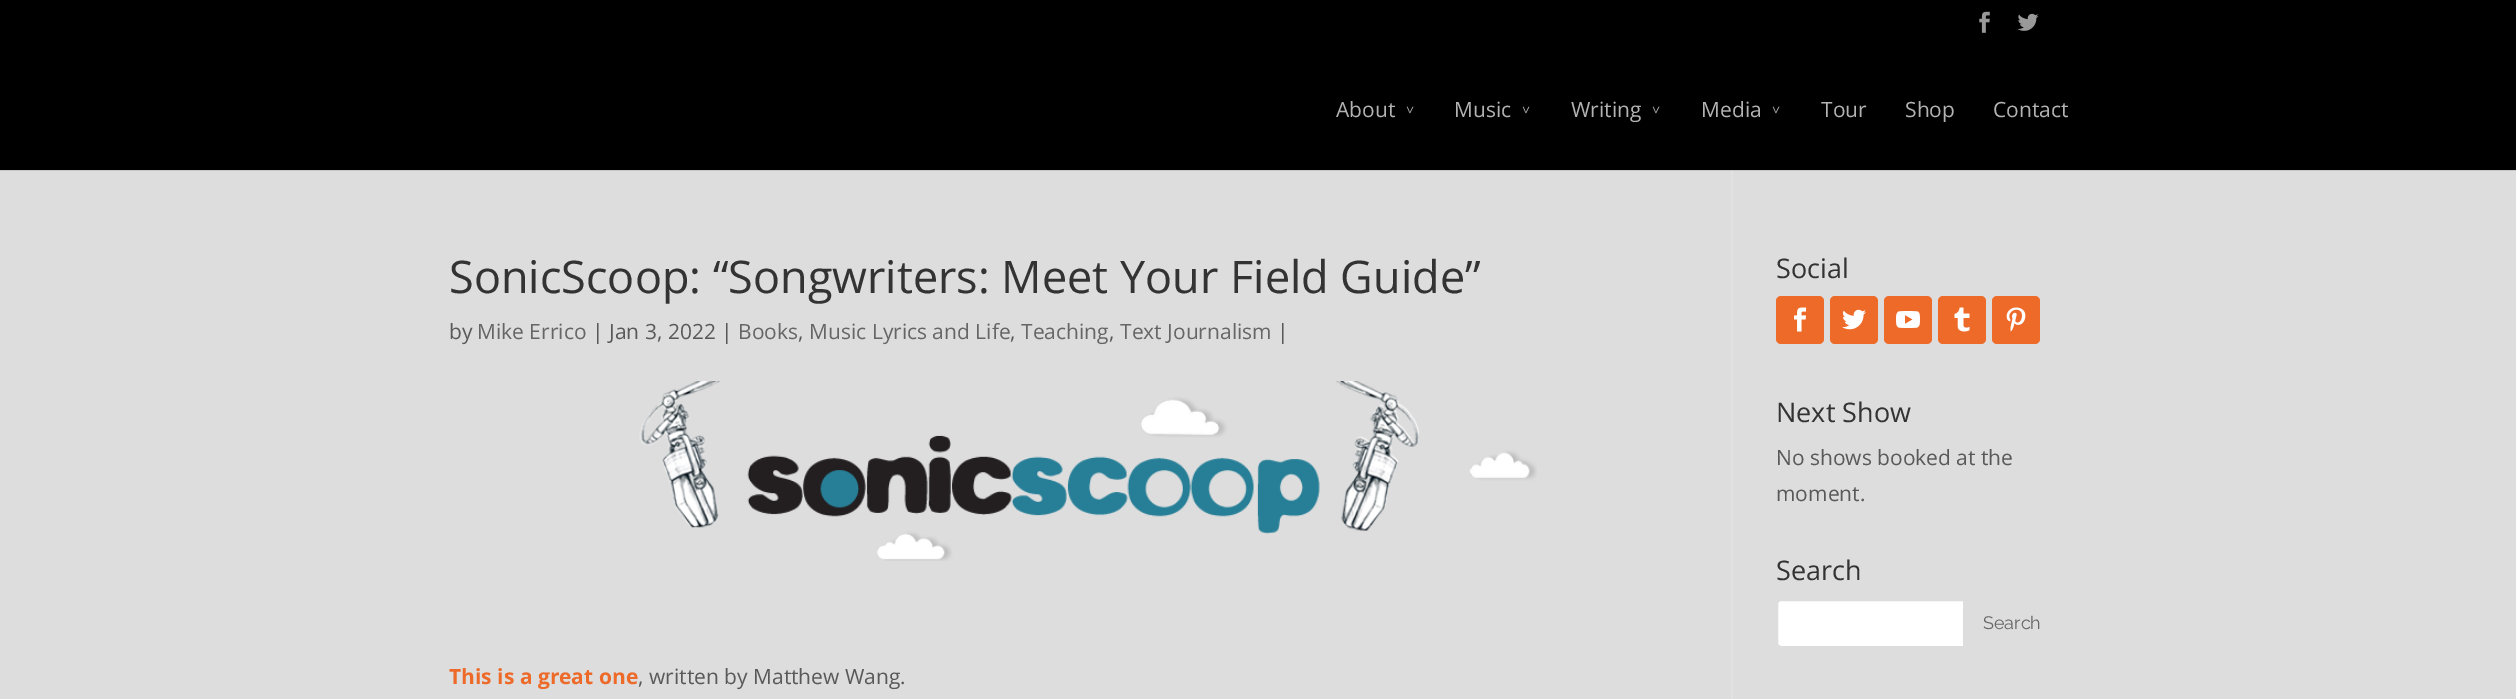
%!PS
<< /PageSize [2516 699] >> setpagedevice
/rgb { 3 { 255 div 3 1 roll } repeat setrgbcolor } def
/font { [ exch dup neg 0 0 3 -1 roll 0 0 ] selectfont } def
/text { moveto show } def
/roundrect { 5 dict begin { /r /h /w /y /x } { exch def } forall
  x r add y moveto x w add y 2 copy h add r arct x w add y h add x 1 index r arct
  x y h add x y r arct x y 2 copy exch w add exch r arct closepath end } def
/picture { 5 dict begin { /h /w /y /x /name } { exch def } forall
  gsave x y translate w h scale
  w h 8 [w 0 0 h 0 0] name (r) file false 3 colorimage grestore end } def
0 699 translate 1 -1 scale
4 setmiterlimit
0 0 0 rgb
0 0 2516 699 rectfill
(img_01.rgb) 1979 11 11 22 picture
(img_02.rgb) 2017 13 22 18 picture
221 221 221 rgb
0 171 2516 528 rectfill
199 199 199 rgb
0 170 2516 1 rectfill
226 226 226 rgb
1731 167 2 532 rectfill
0 0 0 rgb
1731 167 2 3 rectfill
203 203 203 rgb
1731 170 2 1 rectfill
(img_03.rgb) 639 381 898 180 picture
238 106 41 rgb
1776 296 48 48 5 roundrect fill
(img_04.rgb) 1794 307 13 25 picture
1830 296 48 48 5 roundrect fill
(img_05.rgb) 1842 309 24 21 picture
1884 296 48 48 5 roundrect fill
(img_06.rgb) 1896 311 24 17 picture
1938 296 48 48 5 roundrect fill
(img_07.rgb) 1954 307 16 25 picture
1992 296 48 48 5 roundrect fill
(img_08.rgb) 2006 307 20 25 picture
255 255 255 rgb
1781 600 moveto 183 0 rlineto 0 47 rlineto -183 0 rlineto -2 0 -4 -2 -4 -4 rcurveto 0 -39 rlineto 0 -2 2 -4 4 -4 rcurveto closepath gsave fill grestore
221 221 221 rgb
2 setlinewidth
stroke
/OpenSans-Regular 21 font
179 179 179 rgb
(About) 1336 117 text
/OpenSans-Regular 14 font
gsave 1405 106 translate 90 rotate 0 0 moveto (>) show grestore
/OpenSans-Regular 21 font
(Music) 1454 117 text
/OpenSans-Regular 14 font
gsave 1521 106 translate 90 rotate 0 0 moveto (>) show grestore
/OpenSans-Regular 21 font
(Writing) 1571 117 text
/OpenSans-Regular 14 font
gsave 1651 106 translate 90 rotate 0 0 moveto (>) show grestore
/OpenSans-Regular 21 font
(Media) 1701 117 text
/OpenSans-Regular 14 font
gsave 1771 106 translate 90 rotate 0 0 moveto (>) show grestore
/OpenSans-Regular 21 font
(Tour) 1821 117 text
(Shop) 1905 117 text
(Contact) 1993 117 text
/OpenSans-Regular 45 font
51 51 51 rgb
(SonicScoop: “Songwriters: Meet Your Field Guide”) 449 293 text
/OpenSans-Regular 21 font
89 89 89 rgb
(by) 449 339 text
102 102 102 rgb
(Mike Errico) 477 339 text
89 89 89 rgb
(| Jan 3, 2022 |) 592 339 text
102 102 102 rgb
(Books) 738 339 text
89 89 89 rgb
(,) 798 339 text
102 102 102 rgb
(Music Lyrics and Life) 809 339 text
89 89 89 rgb
(,) 1010 339 text
102 102 102 rgb
(Teaching) 1021 339 text
89 89 89 rgb
(,) 1109 339 text
102 102 102 rgb
(Text Journalism) 1120 339 text
89 89 89 rgb
(|) 1277 339 text
/OpenSans-Bold 21 font
238 106 41 rgb
(This is a great one) 449 684 text
/OpenSans-Regular 21 font
89 89 89 rgb
(, written by Matthew Wang.) 638 684 text
/OpenSans-Regular 27 font
51 51 51 rgb
(Social) 1776 278 text
(Next Show) 1776 422 text
/OpenSans-Regular 21 font
89 89 89 rgb
(No shows booked at the) 1776 465 text
(moment.) 1776 501 text
/OpenSans-Regular 27 font
51 51 51 rgb
(Search) 1776 580 text
/Raleway-Regular 18 font
102 102 102 rgb
(Search) 1983 629 text
showpage
